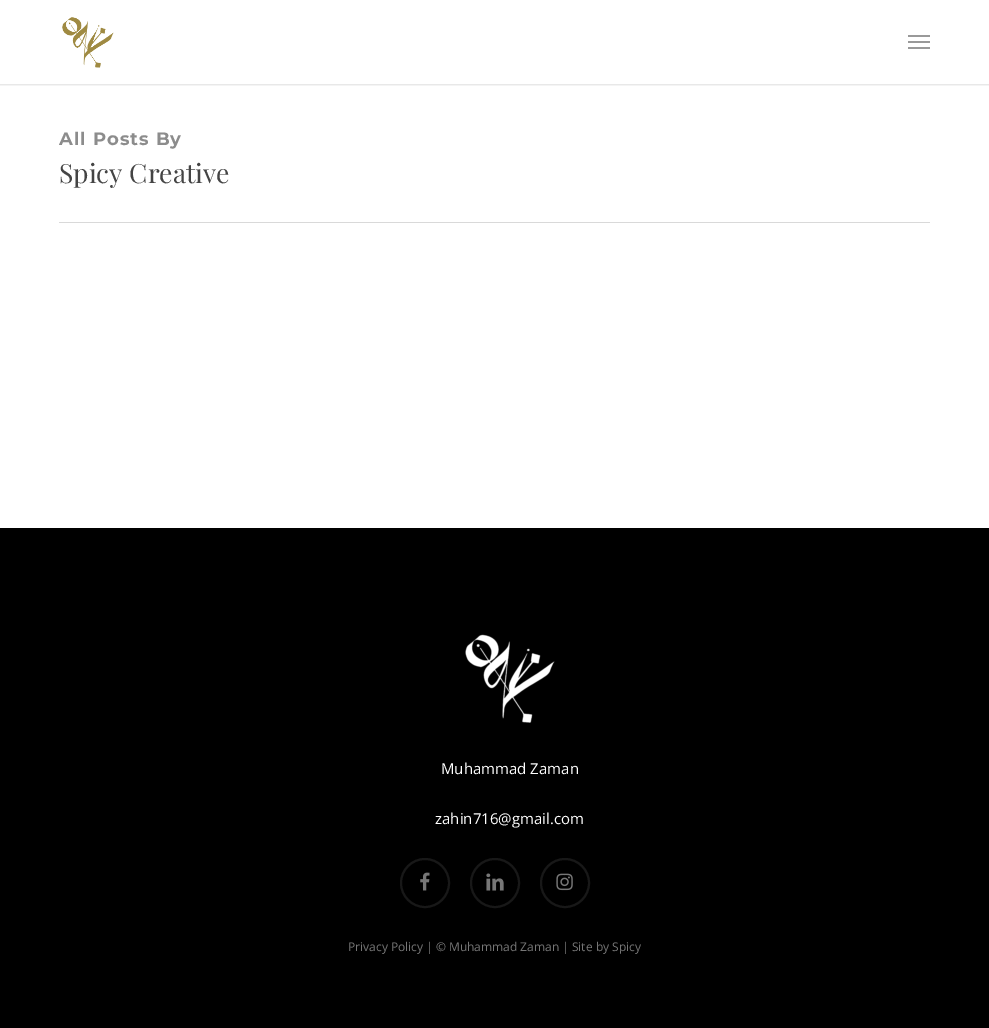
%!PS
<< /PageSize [989 1028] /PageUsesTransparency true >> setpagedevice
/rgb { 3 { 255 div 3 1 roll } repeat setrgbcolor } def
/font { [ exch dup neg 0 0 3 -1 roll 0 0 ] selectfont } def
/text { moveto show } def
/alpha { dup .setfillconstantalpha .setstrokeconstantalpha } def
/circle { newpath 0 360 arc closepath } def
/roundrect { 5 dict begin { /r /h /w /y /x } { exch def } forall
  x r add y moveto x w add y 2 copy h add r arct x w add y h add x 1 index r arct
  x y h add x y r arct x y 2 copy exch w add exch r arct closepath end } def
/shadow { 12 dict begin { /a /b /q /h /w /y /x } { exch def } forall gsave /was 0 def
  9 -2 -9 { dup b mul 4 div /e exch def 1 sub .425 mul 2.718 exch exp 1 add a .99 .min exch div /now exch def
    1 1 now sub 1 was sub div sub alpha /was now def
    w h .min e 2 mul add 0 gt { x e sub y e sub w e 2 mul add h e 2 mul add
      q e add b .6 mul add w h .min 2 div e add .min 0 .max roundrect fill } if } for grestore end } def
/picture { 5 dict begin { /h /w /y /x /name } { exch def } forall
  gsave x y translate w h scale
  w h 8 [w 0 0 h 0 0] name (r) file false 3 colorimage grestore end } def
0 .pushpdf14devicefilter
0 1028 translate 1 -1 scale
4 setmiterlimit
255 255 255 rgb
0 0 989 1028 rectfill
gsave
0 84 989 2 rectclip
0 0 0 rgb
0 0 989 84 0 1.5 0.22 shadow
grestore
(img_01.rgb) 62 17 52 51 picture
153 153 153 rgb
908 35 22 2 rectfill
908 47 22 2 rectfill
908 41 22 2 rectfill
217 217 217 rgb
59 222 871 1 rectfill
0 0 0 rgb
0 528 989 500 rectfill
(img_02.rgb) 465 634 90 89 picture
(img_03.rgb) 420 872 10 19 picture
24 24 24 rgb
2 setlinewidth
425 883 24 circle stroke
(img_04.rgb) 486 873 18 18 picture
495 883 24 circle stroke
(img_05.rgb) 556 873 17 18 picture
565 883 24 circle stroke
/Montserrat-Bold 18 font
140 140 140 rgb
59 145 moveto 1 0 (All Posts By) ashow
/PlayfairDisplay-Regular 26.5 font
68 68 68 rgb
(Spicy Creative) 59 183 text
/OpenSans-Regular 15 font
255 255 255 rgb
(Muhammad Zaman) 441 774 text
(zahin716@gmail.com) 435 824 text
/OpenSans-Regular 12 font
119 119 119 rgb
(Privacy Policy | © Muhammad Zaman | Site by Spicy) 348 951 text
.poppdf14devicefilter showpage
